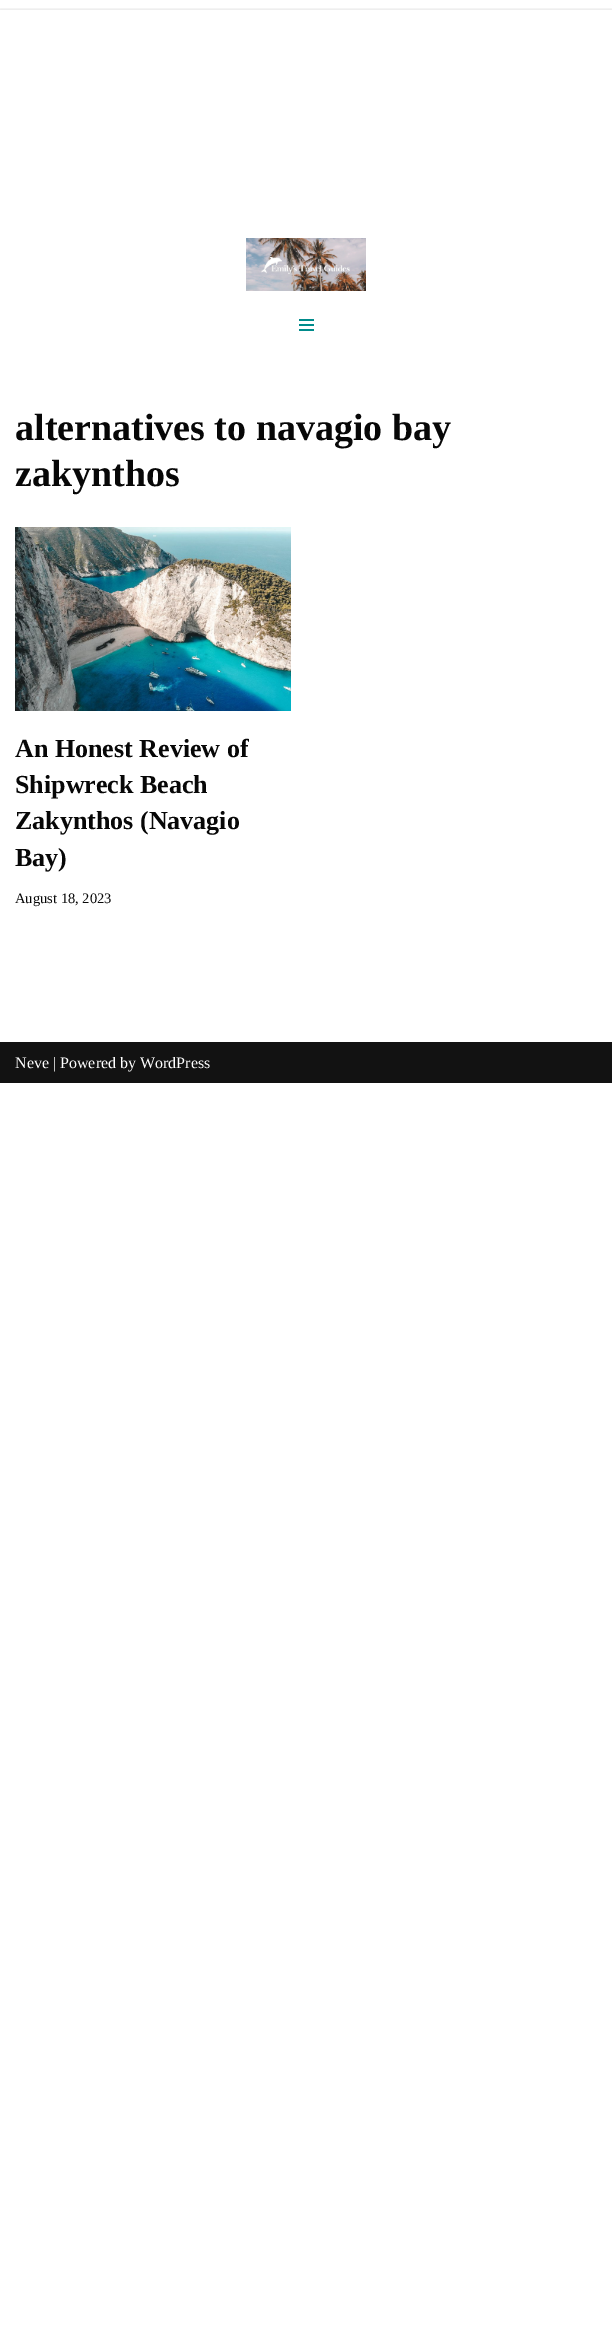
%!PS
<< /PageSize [612 2339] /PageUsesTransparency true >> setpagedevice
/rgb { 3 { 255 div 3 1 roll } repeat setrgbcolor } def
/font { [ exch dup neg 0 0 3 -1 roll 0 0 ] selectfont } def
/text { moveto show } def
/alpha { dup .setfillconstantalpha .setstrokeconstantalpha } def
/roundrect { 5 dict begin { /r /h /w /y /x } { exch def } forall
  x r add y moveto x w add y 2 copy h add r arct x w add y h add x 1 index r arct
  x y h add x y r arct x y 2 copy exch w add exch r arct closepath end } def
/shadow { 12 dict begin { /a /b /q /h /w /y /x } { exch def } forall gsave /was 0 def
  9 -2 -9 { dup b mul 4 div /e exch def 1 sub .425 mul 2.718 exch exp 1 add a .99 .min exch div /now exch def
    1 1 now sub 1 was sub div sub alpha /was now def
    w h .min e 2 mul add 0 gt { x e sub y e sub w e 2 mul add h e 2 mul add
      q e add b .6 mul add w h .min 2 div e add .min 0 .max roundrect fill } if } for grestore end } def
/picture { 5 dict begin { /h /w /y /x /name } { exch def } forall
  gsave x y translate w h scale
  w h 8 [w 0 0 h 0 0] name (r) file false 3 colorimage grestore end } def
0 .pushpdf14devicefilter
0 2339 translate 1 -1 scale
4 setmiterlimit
255 255 255 rgb
0 0 612 2339 rectfill
gsave
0 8 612 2 rectclip
0 0 0 rgb
0 9 612 335 0 1.5 0.1 shadow
grestore
(img_01.rgb) 246 238 120 53 picture
0 139 139 rgb
299 319 15 2 rectfill
299 324 15 2 rectfill
299 329 15 2 rectfill
(img_02.rgb) 15 527 276 184 picture
18 18 18 rgb
0 1042 612 41 rectfill
/LiberationSerif-Bold 38 font
7 7 7 rgb
(alternatives to navagio bay) 15 440 text
(zakynthos) 15 486 text
/LiberationSerif-Bold 26 font
(An Honest Review of) 15 757 text
(Shipwreck Beach) 15 793 text
(Zakynthos \(Navagio) 15 829 text
(Bay\)) 15 866 text
/LiberationSerif-Regular 14.5 font
(August 18, 2023) 15 903 text
/LiberationSerif-Regular 16 font
255 255 255 rgb
(Neve | Powered by WordPress) 15 1068 text
.poppdf14devicefilter showpage
